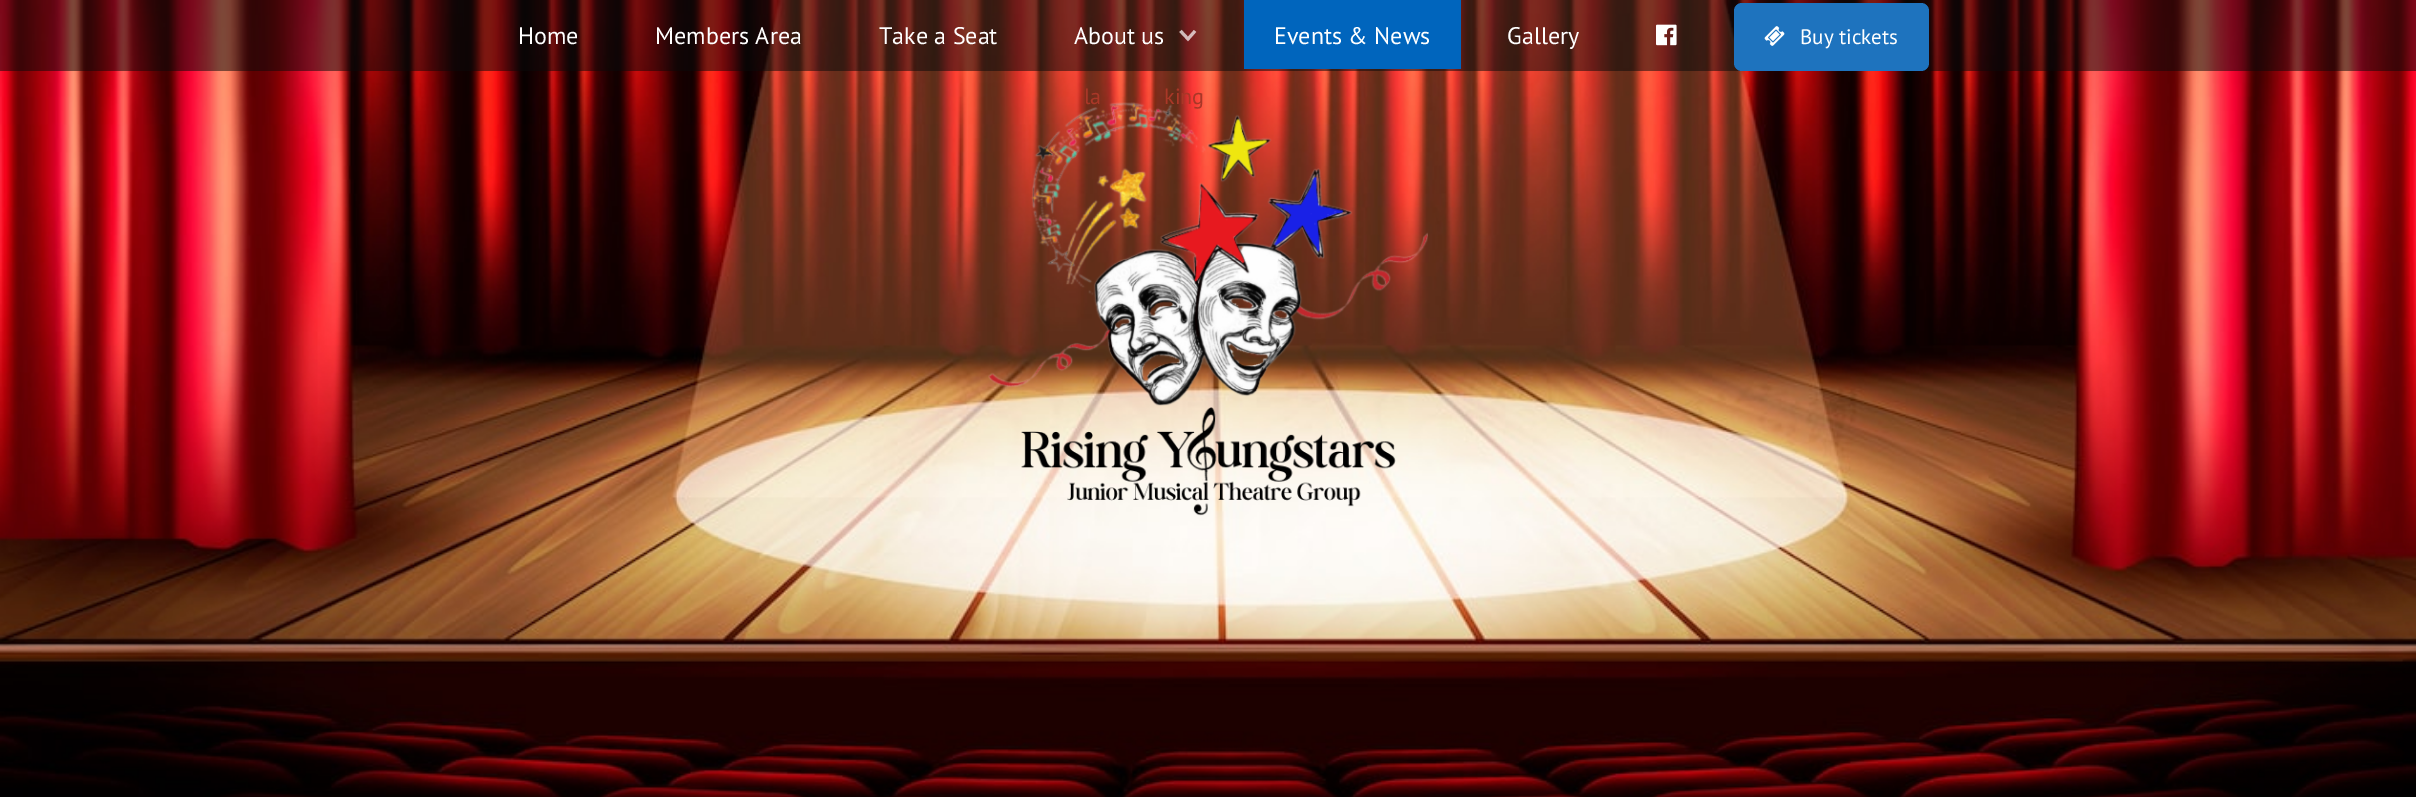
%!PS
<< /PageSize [2416 797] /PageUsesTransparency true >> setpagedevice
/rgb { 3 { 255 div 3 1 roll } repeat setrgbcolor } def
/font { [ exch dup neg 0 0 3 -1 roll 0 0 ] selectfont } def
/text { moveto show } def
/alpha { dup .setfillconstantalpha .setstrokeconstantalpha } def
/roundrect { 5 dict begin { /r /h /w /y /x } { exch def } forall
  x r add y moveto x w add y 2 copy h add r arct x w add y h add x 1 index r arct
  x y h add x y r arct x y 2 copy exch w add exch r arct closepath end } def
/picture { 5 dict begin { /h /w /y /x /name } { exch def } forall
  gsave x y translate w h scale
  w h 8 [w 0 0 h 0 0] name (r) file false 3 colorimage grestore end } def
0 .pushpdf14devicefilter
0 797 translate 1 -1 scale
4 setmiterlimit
255 255 255 rgb
0 0 2416 797 rectfill
(img_01.rgb) 0 0 2416 797 picture
0.53 alpha
10 10 10 rgb
0 0 2416 71 rectfill
0.7 alpha
255 255 255 rgb
3 setlinewidth
1180.5 31 moveto 7.5 8 rlineto 7 -8 rlineto stroke
1 alpha
0 101 189 rgb
1244 0 217 69 rectfill
(img_02.rgb) 1656 24 21 22 picture
30 115 190 rgb
1734 3 195 68 8 roundrect fill
(img_03.rgb) 1764 26 21 20 picture
(img_04.rgb) 988 102 440 414 picture
/PTSans-Regular 24 font
255 255 255 rgb
(Home) 518 44 text
(Members Area) 655 44 text
(Take a Seat) 879 44 text
(About us) 1074 44 text
/PTSans-Regular 22 font
169 55 39 rgb
(la) 1084 104 text
(king) 1164 104 text
/PTSans-Regular 24 font
255 255 255 rgb
(Events & News) 1274 44 text
(Gallery) 1507 44 text
/PTSans-Regular 21 font
(Buy tickets) 1800 44 text
.poppdf14devicefilter showpage
